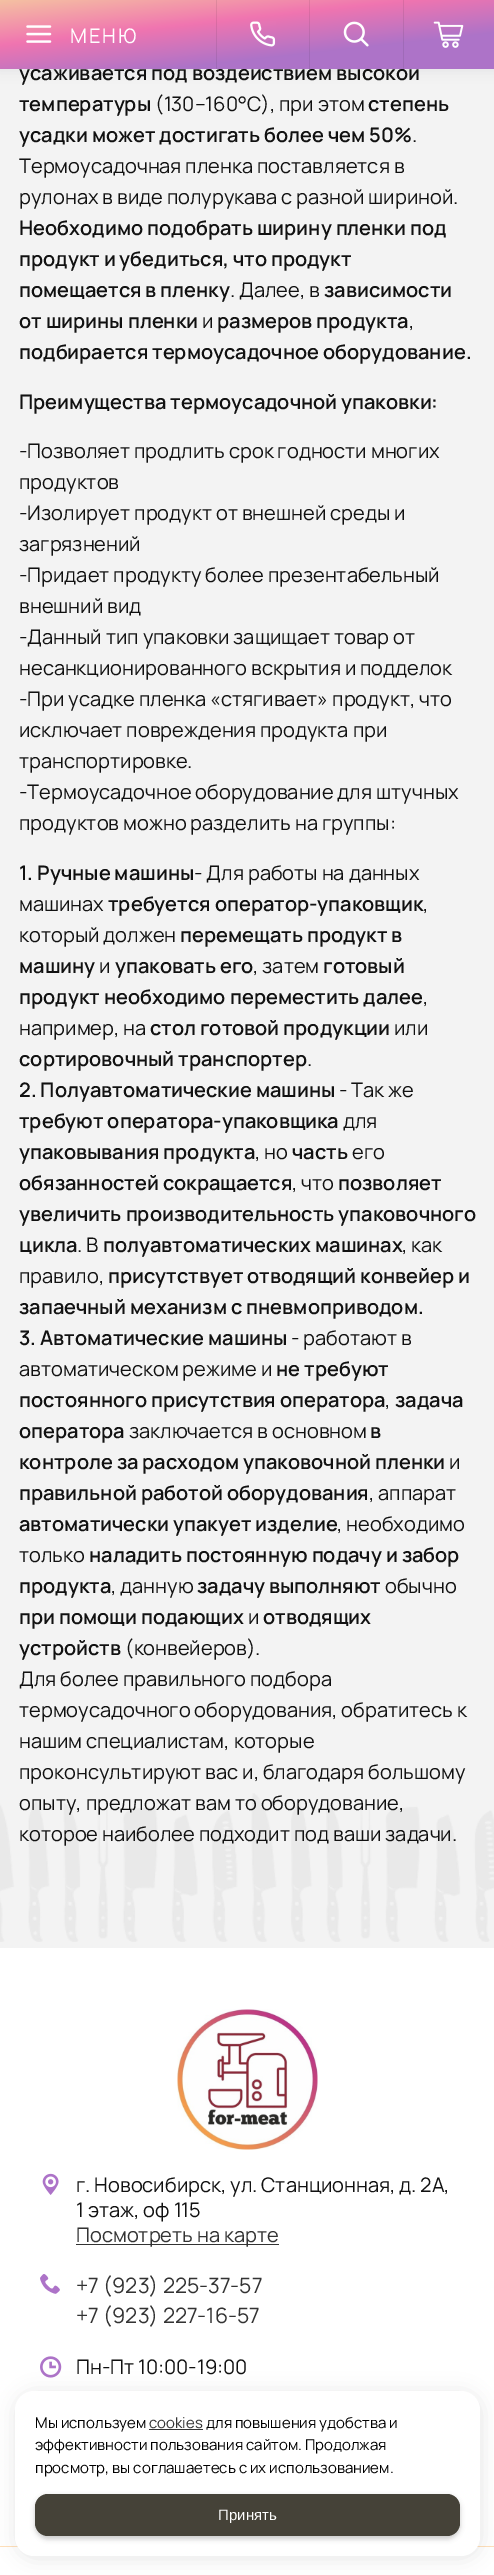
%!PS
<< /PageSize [494 2575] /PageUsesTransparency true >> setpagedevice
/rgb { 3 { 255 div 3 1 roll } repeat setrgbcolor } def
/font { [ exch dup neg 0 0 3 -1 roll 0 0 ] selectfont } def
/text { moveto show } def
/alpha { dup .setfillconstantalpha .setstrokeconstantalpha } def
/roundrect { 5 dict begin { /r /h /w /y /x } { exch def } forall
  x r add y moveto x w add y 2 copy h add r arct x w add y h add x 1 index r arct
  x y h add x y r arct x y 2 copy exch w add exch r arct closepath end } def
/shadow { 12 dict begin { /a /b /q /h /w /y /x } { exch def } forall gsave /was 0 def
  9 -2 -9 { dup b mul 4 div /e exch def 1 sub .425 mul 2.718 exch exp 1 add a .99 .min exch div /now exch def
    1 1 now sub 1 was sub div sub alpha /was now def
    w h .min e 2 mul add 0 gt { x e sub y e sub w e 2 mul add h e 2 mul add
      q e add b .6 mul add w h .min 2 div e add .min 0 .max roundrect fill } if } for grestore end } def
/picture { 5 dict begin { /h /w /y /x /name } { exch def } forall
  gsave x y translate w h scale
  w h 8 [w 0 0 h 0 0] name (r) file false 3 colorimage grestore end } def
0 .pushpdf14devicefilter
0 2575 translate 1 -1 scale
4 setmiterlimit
243 243 243 rgb
0 0 494 2575 rectfill
16 15 28 rgb
-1 -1 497 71 0 6 0.07 shadow
(img_05.rgb) 0 1793 494 149 picture
255 255 255 rgb
0 1948 494 627 rectfill
(img_06.rgb) 177 2009 141 141 picture
(img_07.rgb) 42 2173 17 22 picture
51 51 51 rgb
76 2244 203 1 rectfill
(img_08.rgb) 40 2274 20 20 picture
(img_09.rgb) 40 2356 22 22 picture
255 224 187 rgb
0 2546 494 1 rectfill
0 0 0 rgb
16 2393 465 165 19 9.5 0.1 shadow
255 255 255 rgb
15 2391 465 165 19 roundrect fill
51 51 51 rgb
149 2429 54 1 rectfill
0 0 0 rgb
35 2496 425 43 13 2.5 0.2 shadow
69 66 56 rgb
35 2494 425 42 13 roundrect fill
/Manrope-SemiBold 20 font
17 17 17 rgb
(усаживается под воздействием высокой) 19 80 text
gsave 0 0 moveto 494 0 rlineto 0 69 rlineto -494 0 rlineto closepath clip newpath
<< /ShadingType 2 /ColorSpace /DeviceRGB /Coords [239 -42 254 94] /Extend [true true] /Function << /FunctionType 3 /Domain [0 1] /Functions [<< /FunctionType 2 /Domain [0 1] /C0 [0.969 0.863 0.616] /C1 [0.941 0.459 0.69] /N 1 >> << /FunctionType 2 /Domain [0 1] /C0 [0.941 0.459 0.69] /C1 [0.678 0.451 0.784] /N 1 >> << /FunctionType 2 /Domain [0 1] /C0 [0.678 0.451 0.784] /C1 [0.678 0.451 0.784] /N 1 >>] /Bounds [0.44 0.75] /Encode [0 1 0 1 0 1] >> >> shfill grestore
(img_04.rgb) 433 21 31 27 picture
0.09 alpha
14 14 21 rgb
403 0 1 69 rectfill
1 alpha
(img_03.rgb) 343 21 26 26 picture
0.09 alpha
309 0 1 69 rectfill
1 alpha
(img_02.rgb) 250 21 26 26 picture
0.09 alpha
216 0 1 69 rectfill
/Manrope-Regular 20 font
1 alpha
255 255 255 rgb
70 43 moveto 2 0 (МЕНЮ) ashow
(img_01.rgb) 26 25 26 18 picture
/Manrope-SemiBold 20 font
17 17 17 rgb
(температуры) 19 111 text
/Manrope-Regular 20 font
(\(130–160°С\), при этом) 155 111 text
/Manrope-SemiBold 20 font
(степень) 368 111 text
(усадки может достигать более чем 50%) 19 142 text
/Manrope-Regular 20 font
(.) 412 142 text
(Термоусадочная пленка поставляется в) 19 173 text
(рулонах в виде полурукава с разной шириной.) 19 204 text
/Manrope-SemiBold 20 font
(Необходимо подобрать ширину пленки под) 19 235 text
(продукт и убедиться, что продукт) 19 266 text
(помещается в пленку) 19 297 text
/Manrope-Regular 20 font
(. Далее, в) 230 297 text
/Manrope-SemiBold 20 font
(зависимости) 324 297 text
(от ширины пленки) 19 328 text
/Manrope-Regular 20 font
(и) 202 328 text
/Manrope-SemiBold 20 font
(размеров продукта) 217 328 text
/Manrope-Regular 20 font
(,) 409 328 text
/Manrope-SemiBold 20 font
(подбирается термоусадочное оборудование.) 19 359 text
(Преимущества термоусадочной упаковки:) 19 409 text
/Manrope-Regular 20 font
(-Позволяет продлить срок годности многих) 19 458 text
(продуктов) 19 489 text
(-Изолирует продукт от внешней среды и) 19 520 text
(загрязнений) 19 551 text
(-Придает продукту более презентабельный) 19 582 text
(внешний вид) 19 613 text
(-Данный тип упаковки защищает товар от) 19 644 text
(несанкционированного вскрытия и подделок) 19 675 text
(-При усадке пленка «стягивает» продукт, что) 19 706 text
(исключает повреждения продукта при) 19 737 text
(транспортировке.) 19 768 text
(-Термоусадочное оборудование для штучных) 19 799 text
(продуктов можно разделить на группы:) 19 830 text
/Manrope-SemiBold 20 font
(1. Ручные машины) 19 880 text
/Manrope-Regular 20 font
(- Для работы на данных) 194 880 text
(машинах) 19 911 text
/Manrope-SemiBold 20 font
(требуется оператор-упаковщик) 108 911 text
/Manrope-Regular 20 font
(,) 423 911 text
(который должен) 19 942 text
/Manrope-SemiBold 20 font
(перемещать продукт в) 180 942 text
(машину) 19 973 text
/Manrope-Regular 20 font
(и) 99 973 text
/Manrope-SemiBold 20 font
(упаковать его) 115 973 text
/Manrope-Regular 20 font
(, затем) 253 973 text
/Manrope-SemiBold 20 font
(готовый) 323 973 text
(продукт необходимо переместить далее) 19 1004 text
/Manrope-Regular 20 font
(,) 423 1004 text
(например, на) 19 1035 text
/Manrope-SemiBold 20 font
(стол готовой продукции) 150 1035 text
/Manrope-Regular 20 font
(или) 394 1035 text
/Manrope-SemiBold 20 font
(сортировочный транспортер) 19 1066 text
/Manrope-Regular 20 font
(.) 307 1066 text
/Manrope-SemiBold 20 font
(2. Полуавтоматические машины) 19 1097 text
/Manrope-Regular 20 font
(- Так же) 339 1097 text
/Manrope-SemiBold 20 font
(требуют оператора-упаковщика) 19 1128 text
/Manrope-Regular 20 font
(для) 343 1128 text
/Manrope-SemiBold 20 font
(упаковывания продукта) 19 1159 text
/Manrope-Regular 20 font
(, но) 255 1159 text
/Manrope-SemiBold 20 font
(часть) 292 1159 text
/Manrope-Regular 20 font
(его) 352 1159 text
/Manrope-SemiBold 20 font
(обязанностей сокращается) 19 1190 text
/Manrope-Regular 20 font
(, что) 292 1190 text
/Manrope-SemiBold 20 font
(позволяет) 338 1190 text
(увеличить производительность упаковочного) 19 1221 text
(цикла) 19 1252 text
/Manrope-Regular 20 font
(. В) 77 1252 text
/Manrope-SemiBold 20 font
(полуавтоматических машинах) 103 1252 text
/Manrope-Regular 20 font
(, как) 402 1252 text
(правило,) 19 1283 text
/Manrope-SemiBold 20 font
(присутствует отводящий конвейер и) 108 1283 text
(запаечный механизм с пневмоприводом.) 19 1314 text
(3. Автоматические машины) 19 1345 text
/Manrope-Regular 20 font
(- работают в) 291 1345 text
(автоматическом режиме и) 19 1376 text
/Manrope-SemiBold 20 font
(не требуют) 276 1376 text
(постоянного присутствия оператора) 19 1407 text
/Manrope-Regular 20 font
(,) 385 1407 text
/Manrope-SemiBold 20 font
(задача) 395 1407 text
(оператора) 19 1438 text
/Manrope-Regular 20 font
(заключается в основном) 129 1438 text
/Manrope-SemiBold 20 font
(в) 370 1438 text
(контроле за расходом упаковочной пленки) 19 1469 text
/Manrope-Regular 20 font
(и) 449 1469 text
/Manrope-SemiBold 20 font
(правильной работой оборудования) 19 1500 text
/Manrope-Regular 20 font
(, аппарат) 369 1500 text
/Manrope-SemiBold 20 font
(автоматически упакует изделие) 19 1531 text
/Manrope-Regular 20 font
(, необходимо) 337 1531 text
(только) 19 1562 text
/Manrope-SemiBold 20 font
(наладить постоянную подачу и забор) 89 1562 text
(продукта) 19 1593 text
/Manrope-Regular 20 font
(, данную) 111 1593 text
/Manrope-SemiBold 20 font
(задачу выполняют) 197 1593 text
/Manrope-Regular 20 font
(обычно) 385 1593 text
/Manrope-SemiBold 20 font
(при помощи подающих) 19 1624 text
/Manrope-Regular 20 font
(и) 248 1624 text
/Manrope-SemiBold 20 font
(отводящих) 263 1624 text
(устройств) 19 1655 text
/Manrope-Regular 20 font
(\(конвейеров\).) 125 1655 text
(Для более правильного подбора) 19 1686 text
(термоусадочного оборудования, обратитесь к) 19 1717 text
(нашим специалистам, которые) 19 1748 text
(проконсультируют вас и, благодаря большому) 19 1779 text
(опыту, предложат вам то оборудование,) 19 1810 text
(которое наиболее подходит под ваши задачи.) 19 1841 text
(г. Новосибирск, ул. Станционная, д. 2А,) 76 2192 text
(1 этаж, оф 115) 76 2217 text
51 51 51 rgb
(Посмотреть на карте) 76 2242 text
/Manrope-Regular 21.25 font
(+7 \(923\) 225-37-57) 76 2293 text
(+7 \(923\) 227-16-57) 76 2323 text
/Manrope-Regular 20 font
17 17 17 rgb
(Пн-Пт 10:00-19:00) 76 2374 text
/Manrope-Regular 15 font
0 0 0 rgb
(Мы используем) 35 2428 text
51 51 51 rgb
(cookies) 149 2428 text
0 0 0 rgb
(для повышения удобства и) 206 2428 text
(эффективности пользования сайтом. Продолжая) 35 2450 text
(просмотр, вы соглашаетесь с их использованием.) 35 2473 text
/LiberationSans-Regular 15 font
255 255 255 rgb
(Принять) 218 2520 text
.poppdf14devicefilter showpage
